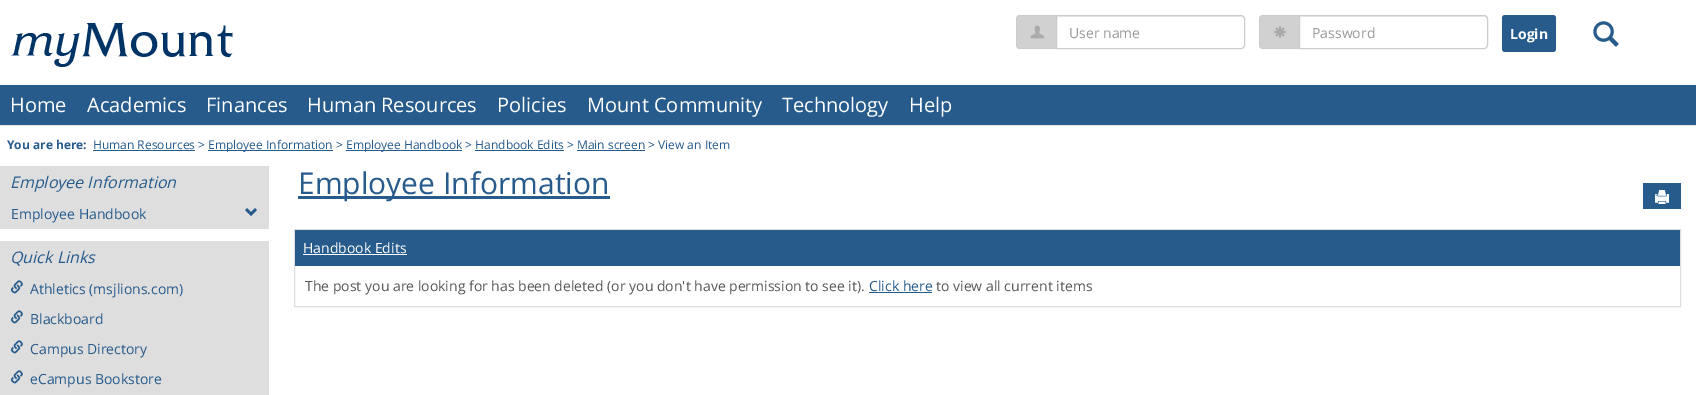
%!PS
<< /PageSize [1696 395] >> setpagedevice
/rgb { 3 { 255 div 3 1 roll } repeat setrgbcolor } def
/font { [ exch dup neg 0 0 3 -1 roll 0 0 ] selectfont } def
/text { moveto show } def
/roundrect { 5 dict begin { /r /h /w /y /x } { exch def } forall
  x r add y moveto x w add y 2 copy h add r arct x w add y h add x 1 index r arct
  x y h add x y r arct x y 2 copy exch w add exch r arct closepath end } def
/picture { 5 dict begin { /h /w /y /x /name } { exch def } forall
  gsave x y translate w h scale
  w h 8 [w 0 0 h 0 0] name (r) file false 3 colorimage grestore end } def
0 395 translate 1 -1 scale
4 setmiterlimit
255 255 255 rgb
0 0 1696 395 rectfill
(img_01.rgb) 11 23 222 44 picture
38 91 140 rgb
0 85 1696 40 rectfill
231 231 231 rgb
0 125 1696 1 rectfill
209 209 209 rgb
1020 15 moveto 36 0 rlineto 0 34 rlineto -36 0 rlineto -2 0 -4 -2 -4 -4 rcurveto 0 -26 rlineto 0 -2 2 -4 4 -4 rcurveto closepath fill
204 204 204 rgb
1020 15 moveto 36 0 rlineto 0 34 rlineto -36 0 rlineto -2 0 -4 -2 -4 -4 rcurveto 0 -26 rlineto 0 -2 2 -4 4 -4 rcurveto closepath 1020 16 moveto 36 0 rlineto 0 32 rlineto -36 0 rlineto -2 0 -3 -1 -3 -3 rcurveto 0 -26 rlineto 0 -2 1 -3 3 -3 rcurveto closepath eofill
(img_02.rgb) 1030 25 14 14 picture
236 236 236 rgb
1057 17 moveto 184 0 rlineto 2 0 3 1 3 3 rcurveto 0 -2 -1 -4 -3 -4 rcurveto -184 0 rlineto closepath fill
204 204 204 rgb
1056.5 15.5 moveto 184.5 0 rlineto 2 0 3.5 1.5 3.5 3.5 rcurveto 0 26 rlineto 0 2 -1.5 3.5 -3.5 3.5 rcurveto -184.5 0 rlineto closepath stroke
209 209 209 rgb
1263 15 moveto 36 0 rlineto 0 34 rlineto -36 0 rlineto -2 0 -4 -2 -4 -4 rcurveto 0 -26 rlineto 0 -2 2 -4 4 -4 rcurveto closepath fill
204 204 204 rgb
1263 15 moveto 36 0 rlineto 0 34 rlineto -36 0 rlineto -2 0 -4 -2 -4 -4 rcurveto 0 -26 rlineto 0 -2 2 -4 4 -4 rcurveto closepath 1263 16 moveto 36 0 rlineto 0 32 rlineto -36 0 rlineto -2 0 -3 -1 -3 -3 rcurveto 0 -26 rlineto 0 -2 1 -3 3 -3 rcurveto closepath eofill
(img_03.rgb) 1274 26 12 12 picture
236 236 236 rgb
1300 17 moveto 184 0 rlineto 2 0 3 1 3 3 rcurveto 0 -2 -1 -4 -3 -4 rcurveto -184 0 rlineto closepath fill
204 204 204 rgb
1299.5 15.5 moveto 184.5 0 rlineto 2 0 3.5 1.5 3.5 3.5 rcurveto 0 26 rlineto 0 2 -1.5 3.5 -3.5 3.5 rcurveto -184.5 0 rlineto closepath stroke
38 91 140 rgb
1502 15 54 37 3 roundrect fill
(img_04.rgb) 1593 21 26 26 picture
93 150 102 1 rectfill
208 150 125 1 rectfill
346 150 116 1 rectfill
475 150 89 1 rectfill
577 150 68 1 rectfill
222 222 222 rgb
0 166 269 229 rectfill
(img_05.rgb) 245 208 12 8 picture
255 255 255 rgb
0 229 269 12 rectfill
(img_06.rgb) 10 280 13 14 picture
(img_06.rgb) 10 310 13 14 picture
(img_06.rgb) 10 340 13 14 picture
(img_06.rgb) 10 370 13 14 picture
38 91 140 rgb
298 196 312 3 rectfill
1643 183 38 26 rectfill
(img_07.rgb) 1655 190 14 14 picture
222 222 222 rgb
294.5 229.5 1386 77 rectstroke
38 91 140 rgb
295 230 1385 36 rectfill
255 255 255 rgb
303 254 104 1 rectfill
38 91 140 rgb
869 292 63 1 rectfill
/OpenSans-Regular 14 font
153 153 153 rgb
(User name) 1069 38 text
(Password) 1312 38 text
/OpenSans-Bold 14 font
255 255 255 rgb
(Login) 1510 39 text
/OpenSans-Regular 20 font
(Home) 10 112 text
(Academics) 87 112 text
(Finances) 206 112 text
(Human Resources) 307 112 text
(Policies) 497 112 text
(Mount Community) 587 112 text
(Technology) 782 112 text
(Help) 909 112 text
/OpenSans-Bold 12 font
38 91 140 rgb
(You are here:) 7 149 text
/OpenSans-Regular 12 font
(Human Resources >) 93 149 text
(Employee Information >) 208 149 text
(Employee Handbook > Handbook Edits > Main screen > View an Item) 346 149 text
/OpenSans-Italic 16 font
(Employee Information) 10 188 text
/OpenSans-Regular 14 font
(Employee Handbook) 11 219 text
/OpenSans-Italic 16 font
(Quick Links) 10 263 text
/OpenSans-Regular 14 font
(Athletics \(msjlions.com\)) 30 294 text
(Blackboard) 30 324 text
(Campus Directory) 30 354 text
(eCampus Bookstore) 30 384 text
/OpenSans-Regular 30 font
(Employee Information) 298 194 text
/OpenSans-Regular 14 font
255 255 255 rgb
(Handbook Edits) 303 253 text
87 87 87 rgb
(The post you are looking for has been deleted \(or you don't have permission to see it\).) 305 291 text
38 91 140 rgb
(Click here) 869 291 text
87 87 87 rgb
(to view all current items) 936 291 text
showpage
